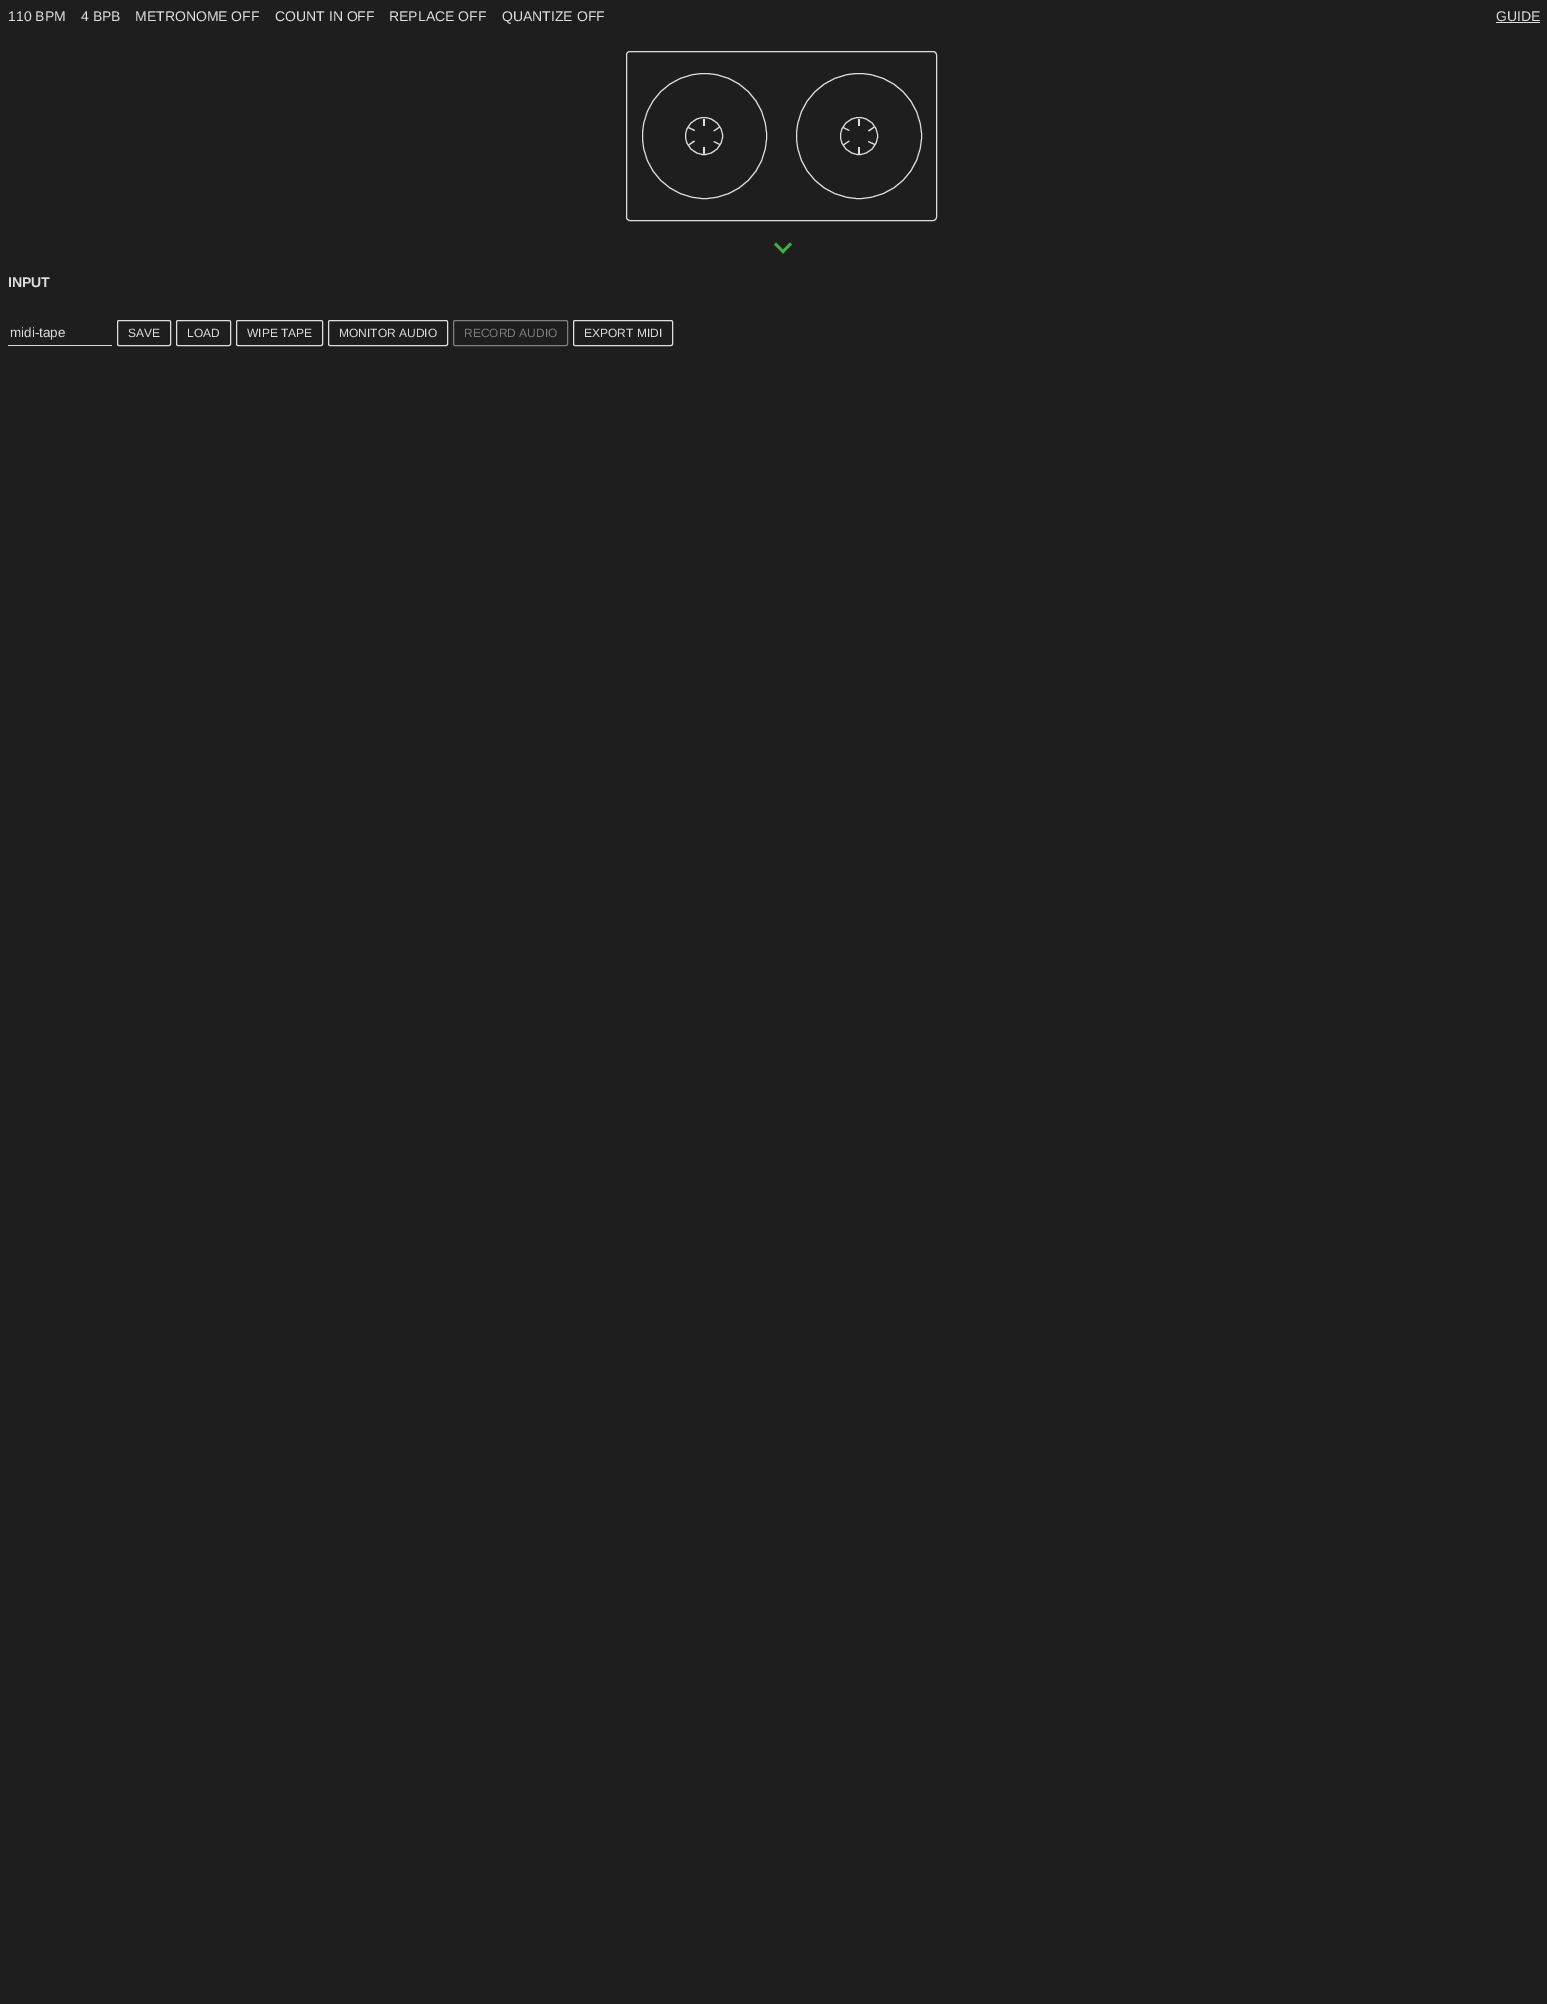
%!PS
<< /PageSize [1547 2004] >> setpagedevice
/rgb { 3 { 255 div 3 1 roll } repeat setrgbcolor } def
/font { [ exch dup neg 0 0 3 -1 roll 0 0 ] selectfont } def
/text { moveto show } def
/circle { newpath 0 360 arc closepath } def
/roundrect { 5 dict begin { /r /h /w /y /x } { exch def } forall
  x r add y moveto x w add y 2 copy h add r arct x w add y h add x 1 index r arct
  x y h add x y r arct x y 2 copy exch w add exch r arct closepath end } def
0 2004 translate 1 -1 scale
4 setmiterlimit
30 30 30 rgb
0 0 1547 2004 rectfill
222 222 222 rgb
1496 22 44 1 rectfill
626.5 51.5 310 169 3.5 roundrect stroke
642.5 73.5 124 125 62 roundrect stroke
704 136 18.5 circle stroke
703 119 2 7 rectfill
694 140.5 moveto 1 1 rlineto -6 4 rlineto -0.5 -1 rlineto closepath 695 130 moveto -0.5 1 rlineto -6.5 -3 rlineto 0.5 -1 rlineto closepath fill
719.5 126.5 moveto 0.5 1 rlineto -6 4 rlineto -0.5 -1 rlineto closepath 720 144 moveto -0.5 1 rlineto -6 -3 rlineto 0.5 -1 rlineto closepath fill
703 147 2 7 rectfill
859 136 62.5 circle stroke
859 136 18.5 circle stroke
858 119 2 7 rectfill
849 140.5 moveto 0.5 1 rlineto -6 4 rlineto -0.5 -1 rlineto closepath 849.5 130 moveto -0.5 1 rlineto -6 -3 rlineto 0.5 -1 rlineto closepath fill
874 126.5 moveto 0.5 1 rlineto -5.5 4 rlineto -1 -1 rlineto closepath 875 144 moveto -0.5 1 rlineto -6.5 -3 rlineto 0.5 -1 rlineto closepath fill
858 147 2 7 rectfill
66 175 66 rgb
790 242.5 moveto 2 2 rlineto -9 9 rlineto -2 -2 rlineto closepath fill
776 242.5 moveto 9 9 rlineto -2 2 rlineto -9 -9 rlineto closepath fill
222 222 222 rgb
8 345 104 1 rectfill
117.5 320.5 53 25 1.5 roundrect stroke
176.5 320.5 54 25 1.5 roundrect stroke
236.5 320.5 86 25 1.5 roundrect stroke
328.5 320.5 119 25 1.5 roundrect stroke
126 126 126 rgb
453.5 320.5 114 25 1.5 roundrect stroke
222 222 222 rgb
573.5 320.5 99 25 1.5 roundrect stroke
/LiberationSans-Regular 14 font
(110 BPM) 8 21 text
(4 BPB) 81 21 text
(METRONOME OFF) 135 21 text
(COUNT IN OFF) 275 21 text
(REPLACE OFF) 389 21 text
(QUANTIZE OFF) 502 21 text
(GUIDE) 1496 21 text
/LiberationSans-Bold 14 font
(INPUT) 8 287 text
/LiberationSans-Regular 13.5 font
(midi-tape) 10 337 text
/LiberationSans-Regular 12 font
(SAVE) 128 337 text
(LOAD) 187 337 text
(WIPE TAPE) 247 337 text
(MONITOR AUDIO) 339 337 text
126 126 126 rgb
(RECORD AUDIO) 464 337 text
222 222 222 rgb
(EXPORT MIDI) 584 337 text
showpage
